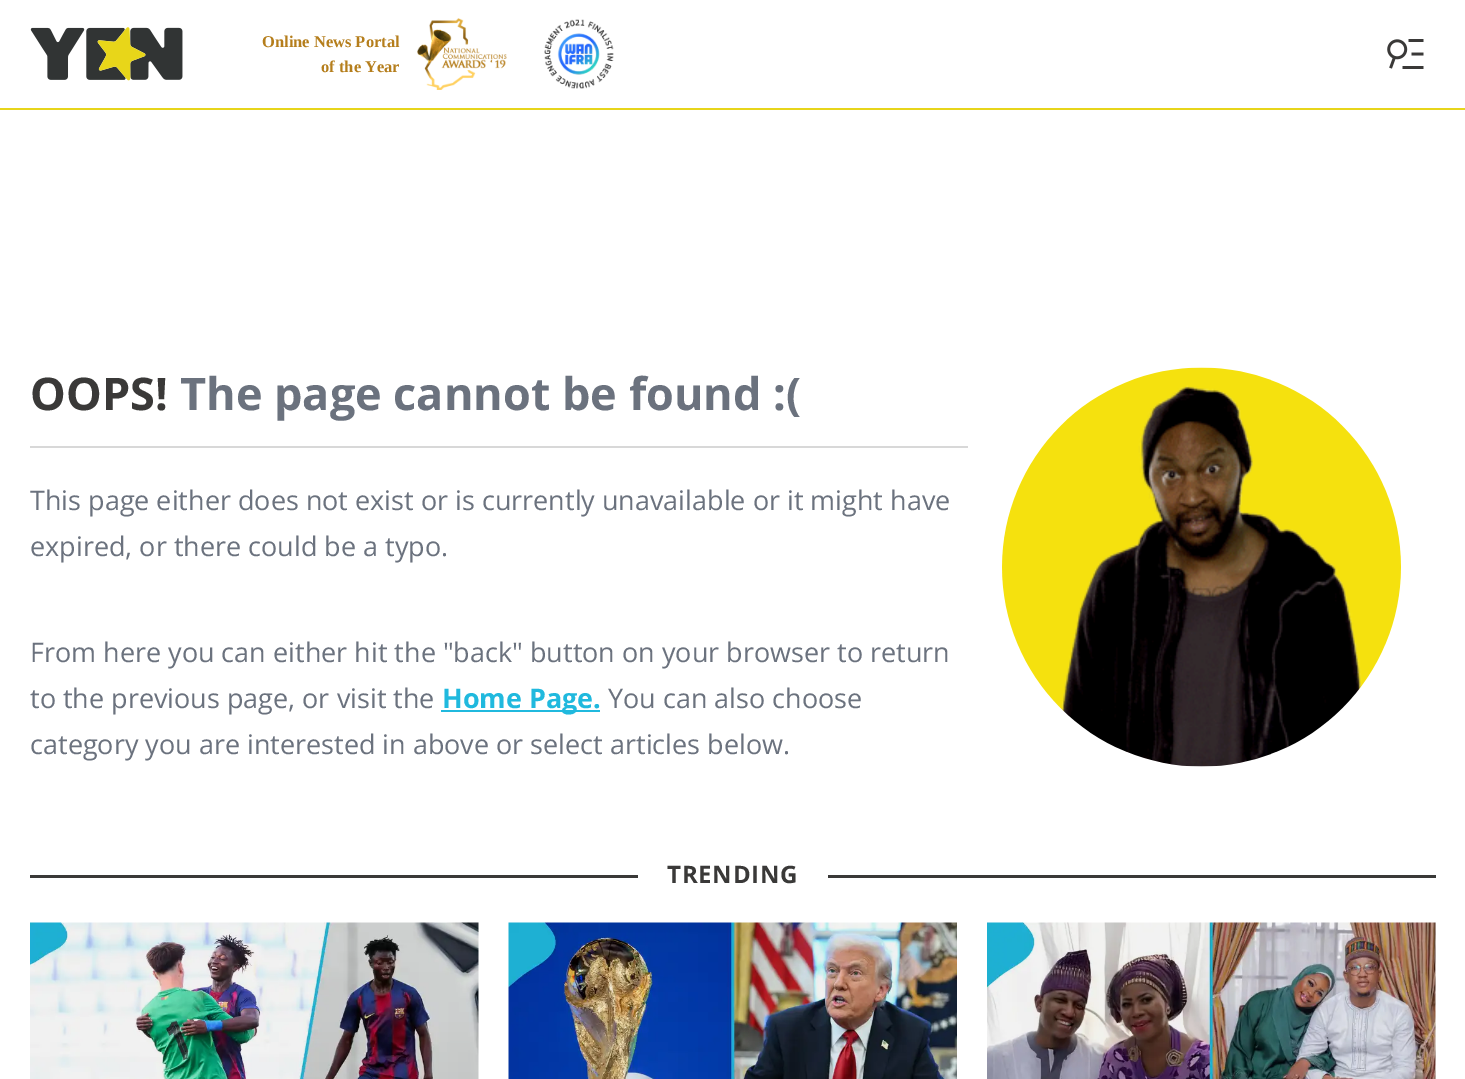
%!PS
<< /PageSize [1465 1079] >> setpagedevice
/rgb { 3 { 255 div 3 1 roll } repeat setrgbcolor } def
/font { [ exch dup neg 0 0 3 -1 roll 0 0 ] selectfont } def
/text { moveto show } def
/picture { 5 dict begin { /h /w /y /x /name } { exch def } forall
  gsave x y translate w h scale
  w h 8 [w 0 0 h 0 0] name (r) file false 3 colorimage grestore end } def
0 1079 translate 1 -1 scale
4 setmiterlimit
255 255 255 rgb
0 0 1465 1079 rectfill
231 213 27 rgb
0 108 1465 2 rectfill
(img_01.rgb) 30 27 153 54 picture
(img_02.rgb) 417 18 90 72 picture
(img_03.rgb) 544 19 70 70 picture
(img_04.rgb) 1387 39 37 30 picture
216 216 216 rgb
30 446 938 2 rectfill
32 185 222 rgb
441 710 159 2 rectfill
(img_05.rgb) 1002 367 399 400 picture
58 57 56 rgb
30 875 1406 3 rectfill
255 255 255 rgb
638 875 190 3 rectfill
(img_06.rgb) 30 922 449 157 picture
(img_07.rgb) 508 922 449 157 picture
(img_08.rgb) 987 922 449 157 picture
/LiberationSerif-Bold 16.5 font
181 126 28 rgb
(Online News Portal) 262 47 text
(of the Year) 321 72 text
/OpenSans-Bold 45 font
58 57 56 rgb
(OOPS!) 30 410 text
107 114 126 rgb
(The page cannot be found :\() 180 410 text
/OpenSans-Regular 27 font
(This page either does not exist or is currently unavailable or it might have) 30 510 text
(expired, or there could be a typo.) 30 556 text
(From here you can either hit the "back" button on your browser to return) 30 662 text
(to the previous page, or visit the) 30 708 text
/OpenSans-Bold 27 font
32 185 222 rgb
(Home Page.) 442 708 text
/OpenSans-Regular 27 font
107 114 126 rgb
(You can also choose) 608 708 text
(category you are interested in above or select articles below.) 30 754 text
/OpenSans-Bold 24 font
58 57 56 rgb
667 883 moveto 0.75 0 (TRENDING) ashow
showpage
